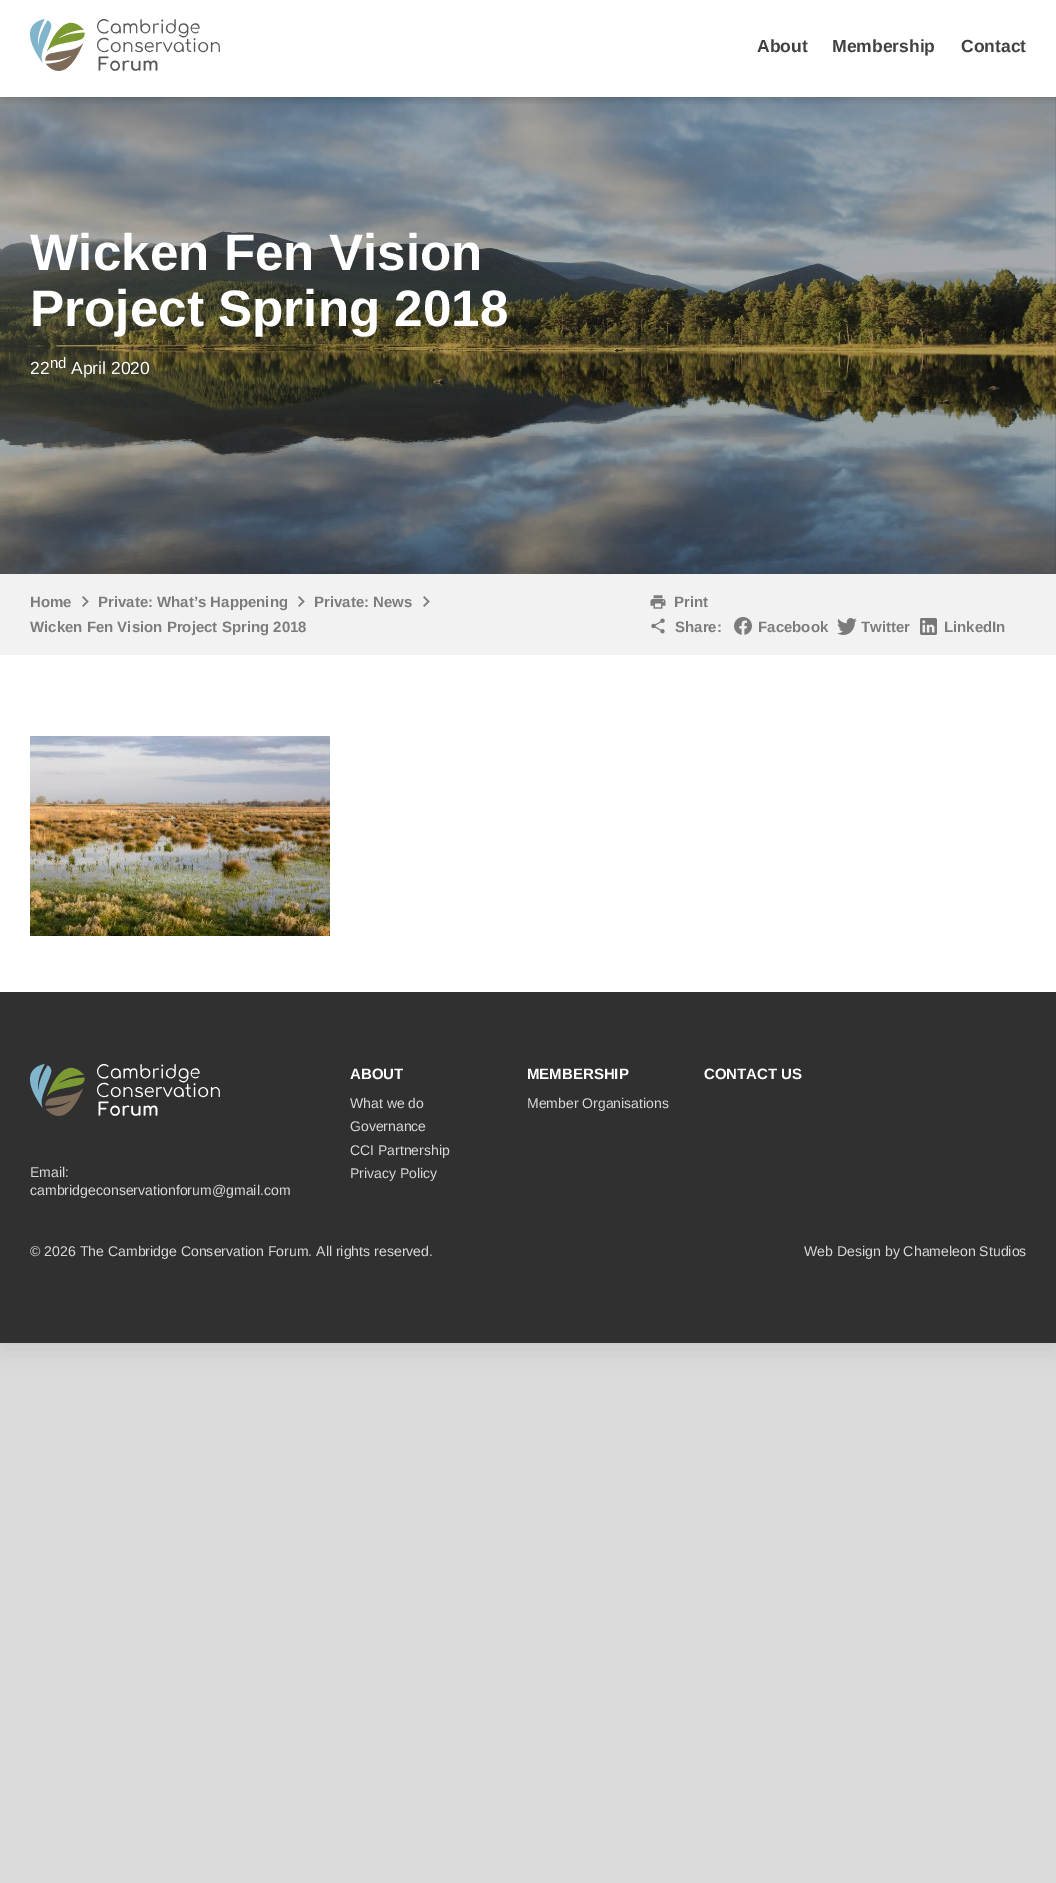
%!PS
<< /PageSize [1056 1883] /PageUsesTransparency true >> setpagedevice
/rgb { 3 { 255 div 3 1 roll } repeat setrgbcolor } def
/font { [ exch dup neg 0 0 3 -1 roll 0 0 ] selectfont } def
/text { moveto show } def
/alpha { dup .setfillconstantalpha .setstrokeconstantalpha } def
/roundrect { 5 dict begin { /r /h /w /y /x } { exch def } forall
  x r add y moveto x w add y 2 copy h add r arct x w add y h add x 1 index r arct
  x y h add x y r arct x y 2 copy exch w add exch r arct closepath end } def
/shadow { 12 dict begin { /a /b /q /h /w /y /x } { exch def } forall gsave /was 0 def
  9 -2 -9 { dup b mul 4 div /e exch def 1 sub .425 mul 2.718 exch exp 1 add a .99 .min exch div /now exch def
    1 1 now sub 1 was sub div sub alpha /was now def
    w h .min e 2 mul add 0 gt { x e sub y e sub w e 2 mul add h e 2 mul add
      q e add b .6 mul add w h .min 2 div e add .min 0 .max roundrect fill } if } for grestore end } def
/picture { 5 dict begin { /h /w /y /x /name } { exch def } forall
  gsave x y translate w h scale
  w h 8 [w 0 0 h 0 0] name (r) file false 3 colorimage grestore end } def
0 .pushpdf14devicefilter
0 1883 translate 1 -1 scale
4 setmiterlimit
219 219 219 rgb
0 0 1056 1883 rectfill
0 0 0 rgb
0 5 1056 1343 0 12.5 0.1 shadow
255 255 255 rgb
0 0 1056 992 rectfill
0 0 0 rgb
0 97 1056 477 rectfill
(img_02.rgb) 0 97 1056 477 picture
gsave
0 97 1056 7 rectclip
3 0 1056 97 0 5 0.25 shadow
grestore
(img_01.rgb) 30 19 190 52 picture
242 242 242 rgb
0 574 1056 81 rectfill
(img_03.rgb) 82 596 7 11 picture
(img_03.rgb) 298 596 7 11 picture
(img_03.rgb) 423 596 7 11 picture
(img_04.rgb) 650 595 16 14 picture
(img_05.rgb) 651 618 14 16 picture
(img_06.rgb) 734 617 18 18 picture
(img_07.rgb) 837 618 20 17 picture
(img_08.rgb) 920 618 17 17 picture
(img_09.rgb) 30 736 300 200 picture
48 48 48 rgb
0 992 1056 351 rectfill
(img_10.rgb) 30 1064 190 52 picture
/LiberationSans-Bold 17.5 font
64 64 64 rgb
(About) 757 52 text
(Membership) 832 52 text
(Contact) 961 52 text
/LiberationSans-Bold 51.25 font
255 255 255 rgb
(Wicken Fen Vision) 30 270 text
(Project Spring 2018) 30 326 text
/LiberationSans-Regular 17.5 font
(22) 30 374 text
/LiberationSans-Regular 15 font
(nd) 50 368 text
/LiberationSans-Regular 17.5 font
(April 2020) 71 374 text
/LiberationSans-Bold 15 font
124 124 124 rgb
(Home) 30 607 text
(Private: What’s Happening) 98 607 text
(Private: News) 314 607 text
(Wicken Fen Vision Project Spring 2018) 30 632 text
(Print) 674 607 text
(Share:) 675 632 text
(Facebook) 758 632 text
(Twitter) 861 632 text
(LinkedIn) 944 632 text
/LiberationSans-Regular 14.1 font
216 216 216 rgb
(Email:) 30 1177 text
(cambridgeconservationforum@gmail.com) 30 1195 text
/LiberationSans-Bold 15 font
255 255 255 rgb
(ABOUT) 350 1079 text
/LiberationSans-Regular 14 font
216 216 216 rgb
(What we do) 350 1108 text
(Governance) 350 1131 text
(CCI Partnership) 350 1155 text
(Privacy Policy) 350 1178 text
/LiberationSans-Bold 15 font
255 255 255 rgb
(MEMBERSHIP) 527 1079 text
/LiberationSans-Regular 14 font
216 216 216 rgb
(Member Organisations) 527 1108 text
/LiberationSans-Bold 15 font
255 255 255 rgb
(CONTACT US) 704 1079 text
/LiberationSans-Regular 14.1 font
216 216 216 rgb
(© 2026 The Cambridge Conservation Forum. All rights reserved.) 30 1256 text
(Web Design by Chameleon Studios) 804 1256 text
.poppdf14devicefilter showpage
